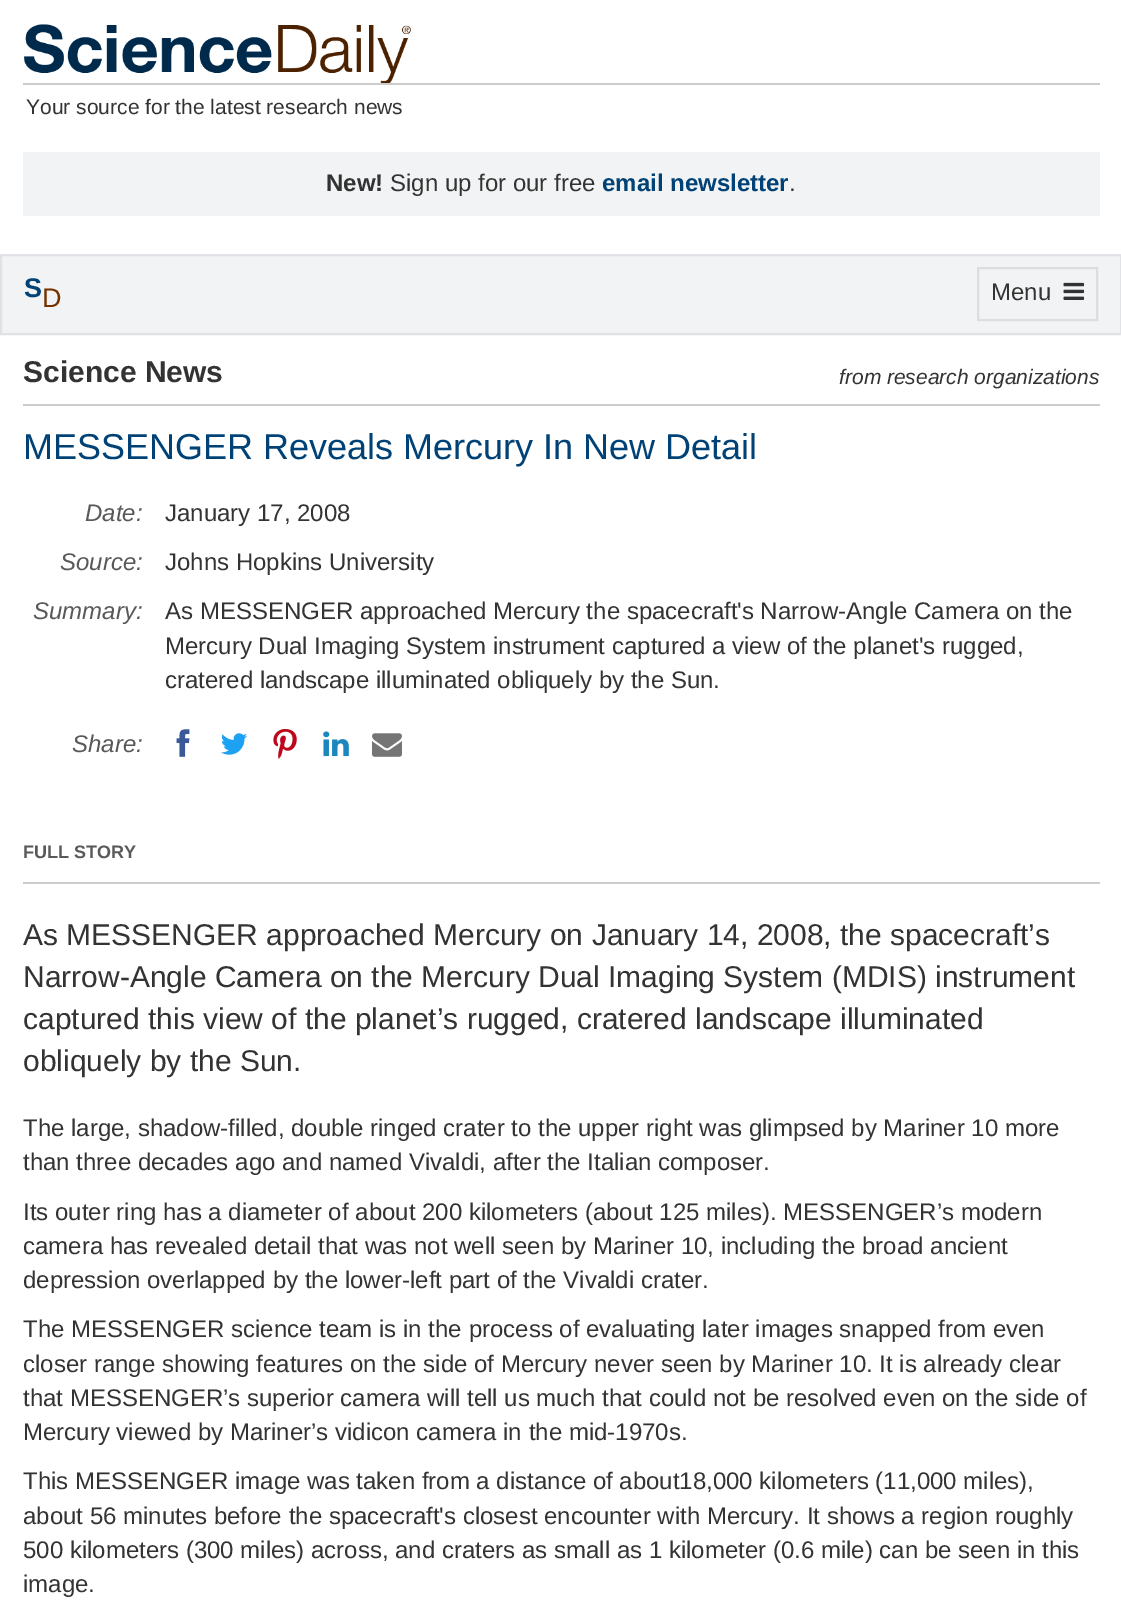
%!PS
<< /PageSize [1121 1605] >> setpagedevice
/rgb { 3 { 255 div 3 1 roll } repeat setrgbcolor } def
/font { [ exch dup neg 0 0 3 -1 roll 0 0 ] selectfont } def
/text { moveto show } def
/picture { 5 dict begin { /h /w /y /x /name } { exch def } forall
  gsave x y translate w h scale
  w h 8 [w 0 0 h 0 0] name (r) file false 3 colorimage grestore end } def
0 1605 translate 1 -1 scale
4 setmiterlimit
255 255 255 rgb
0 0 1121 1605 rectfill
(img_01.rgb) 24 24 387 59 picture
204 204 204 rgb
23 83 1077 2 rectfill
242 243 244 rgb
23 152 1077 64 rectfill
1 255 moveto 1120 0 rlineto 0 79 rlineto -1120 0 rlineto closepath gsave fill grestore
224 226 229 rgb
2 setlinewidth
stroke
221 221 221 rgb
978 268 119 52 rectstroke
(img_02.rgb) 1063 282 22 18 picture
204 204 204 rgb
23 404 1077 2 rectfill
(img_03.rgb) 176 729 14 28 picture
(img_04.rgb) 221 733 26 22 picture
(img_05.rgb) 273 729 24 30 picture
(img_06.rgb) 323 731 26 26 picture
(img_07.rgb) 372 733 30 24 picture
23 882 1077 2 rectfill
/LiberationSans-Regular 21 font
51 51 51 rgb
(Your source for the latest research news) 26 114 text
/LiberationSans-Bold 24 font
(New!) 326 191 text
/LiberationSans-Regular 24 font
(Sign up for our free) 390 191 text
/LiberationSans-Bold 24 font
0 66 118 rgb
(email newsletter) 602 191 text
/LiberationSans-Regular 24 font
51 51 51 rgb
(.) 789 191 text
/LiberationSans-Bold 27 font
0 66 118 rgb
(S) 24 297 text
/LiberationSans-Regular 27 font
118 51 0 rgb
(D) 42 307 text
/LiberationSans-Regular 24 font
51 51 51 rgb
(Menu) 991 300 text
/LiberationSans-Bold 30 font
(Science News) 23 382 text
/LiberationSans-Italic 21 font
(from research organizations) 839 384 text
/LiberationSans-Regular 36 font
0 66 118 rgb
(MESSENGER Reveals Mercury In New Detail) 23 459 text
/LiberationSans-Italic 24 font
89 89 89 rgb
(Date:) 85 521 text
/LiberationSans-Regular 24 font
51 51 51 rgb
(January 17, 2008) 165 521 text
/LiberationSans-Italic 24 font
89 89 89 rgb
(Source:) 60 570 text
/LiberationSans-Regular 24 font
51 51 51 rgb
(Johns Hopkins University) 165 570 text
/LiberationSans-Italic 24 font
89 89 89 rgb
(Summary:) 33 619 text
/LiberationSans-Regular 24 font
51 51 51 rgb
(As MESSENGER approached Mercury the spacecraft's Narrow-Angle Camera on the) 165 619 text
(Mercury Dual Imaging System instrument captured a view of the planet's rugged,) 165 654 text
(cratered landscape illuminated obliquely by the Sun.) 165 688 text
/LiberationSans-Italic 24 font
89 89 89 rgb
(Share:) 72 752 text
/LiberationSans-Bold 18 font
(FULL STORY) 23 858 text
/LiberationSans-Regular 30 font
51 51 51 rgb
(As MESSENGER approached Mercury on January 14, 2008, the spacecraft’s) 23 945 text
(Narrow-Angle Camera on the Mercury Dual Imaging System \(MDIS\) instrument) 23 987 text
(captured this view of the planet’s rugged, cratered landscape illuminated) 23 1029 text
(obliquely by the Sun.) 23 1071 text
/LiberationSans-Regular 24 font
(The large, shadow-filled, double ringed crater to the upper right was glimpsed by Mariner 10 more) 23 1136 text
(than three decades ago and named Vivaldi, after the Italian composer.) 23 1170 text
(Its outer ring has a diameter of about 200 kilometers \(about 125 miles\). MESSENGER’s modern) 23 1220 text
(camera has revealed detail that was not well seen by Mariner 10, including the broad ancient) 23 1254 text
(depression overlapped by the lower-left part of the Vivaldi crater.) 23 1288 text
(The MESSENGER science team is in the process of evaluating later images snapped from even) 23 1337 text
(closer range showing features on the side of Mercury never seen by Mariner 10. It is already clear) 23 1372 text
(that MESSENGER’s superior camera will tell us much that could not be resolved even on the side of) 23 1406 text
(Mercury viewed by Mariner’s vidicon camera in the mid-1970s.) 23 1440 text
(This MESSENGER image was taken from a distance of about18,000 kilometers \(11,000 miles\),) 23 1489 text
(about 56 minutes before the spacecraft's closest encounter with Mercury. It shows a region roughly) 23 1524 text
(500 kilometers \(300 miles\) across, and craters as small as 1 kilometer \(0.6 mile\) can be seen in this) 23 1558 text
(image.) 23 1592 text
showpage
